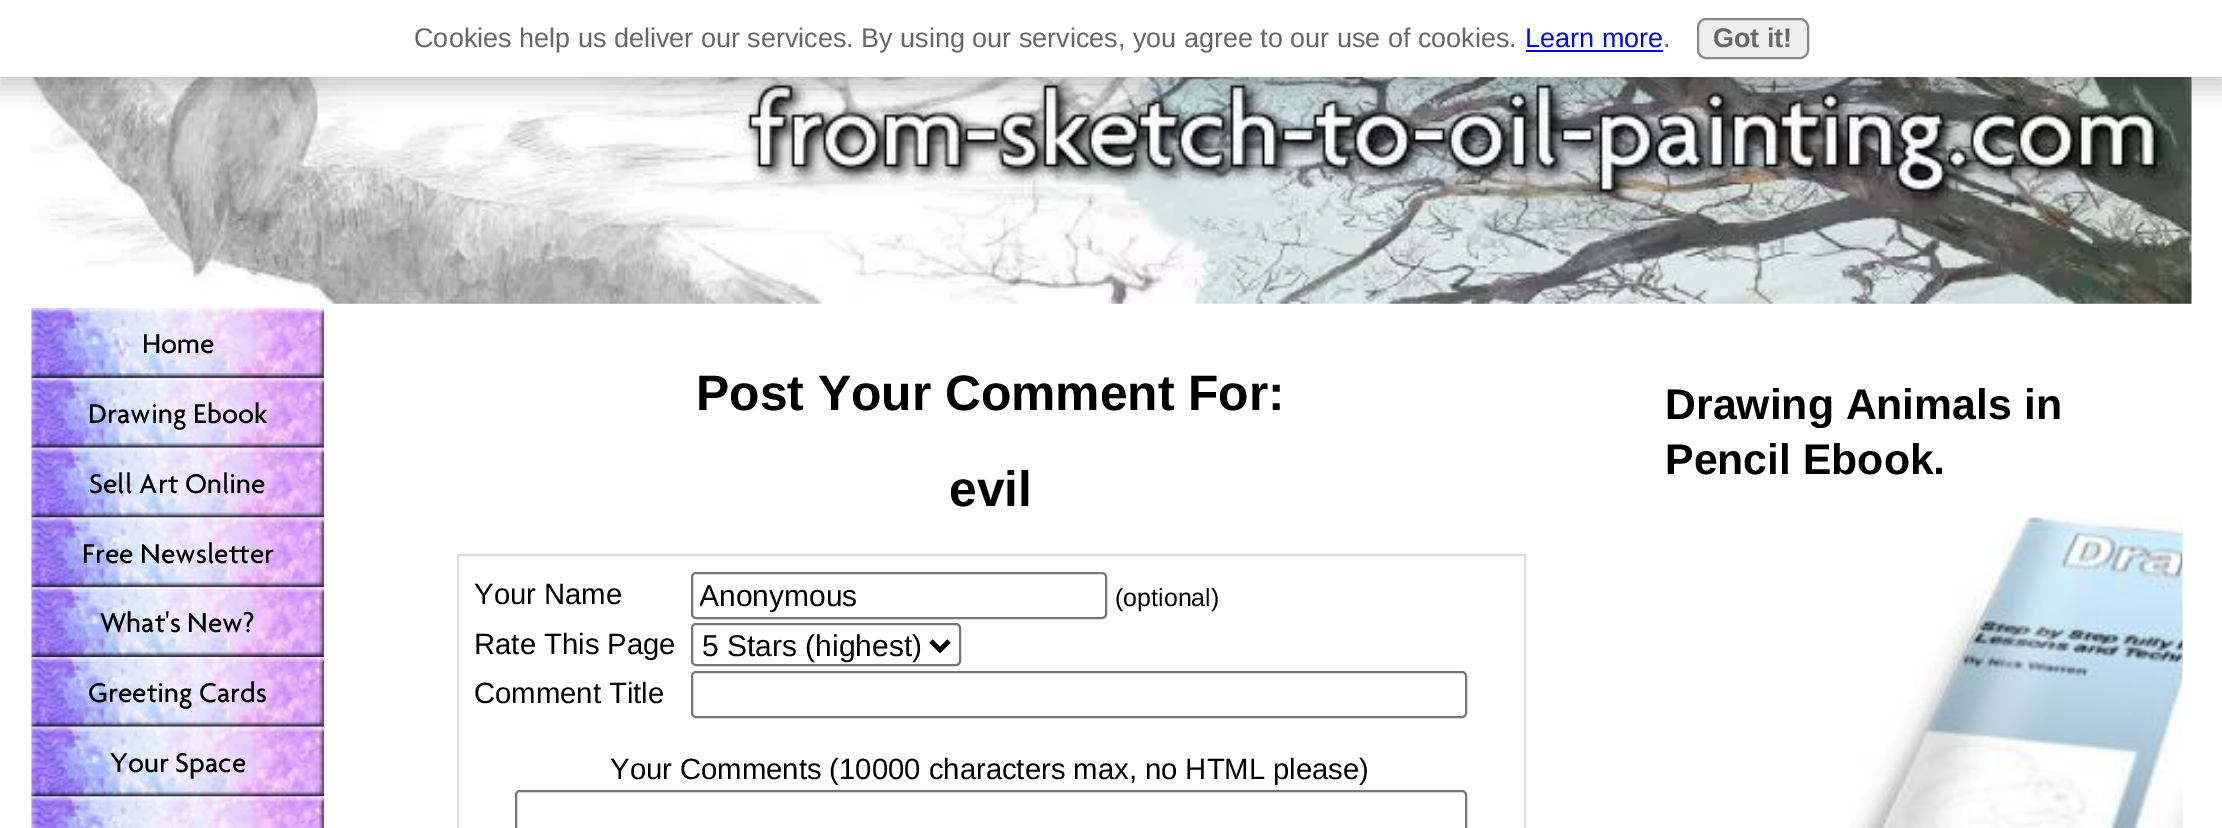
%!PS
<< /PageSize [2222 828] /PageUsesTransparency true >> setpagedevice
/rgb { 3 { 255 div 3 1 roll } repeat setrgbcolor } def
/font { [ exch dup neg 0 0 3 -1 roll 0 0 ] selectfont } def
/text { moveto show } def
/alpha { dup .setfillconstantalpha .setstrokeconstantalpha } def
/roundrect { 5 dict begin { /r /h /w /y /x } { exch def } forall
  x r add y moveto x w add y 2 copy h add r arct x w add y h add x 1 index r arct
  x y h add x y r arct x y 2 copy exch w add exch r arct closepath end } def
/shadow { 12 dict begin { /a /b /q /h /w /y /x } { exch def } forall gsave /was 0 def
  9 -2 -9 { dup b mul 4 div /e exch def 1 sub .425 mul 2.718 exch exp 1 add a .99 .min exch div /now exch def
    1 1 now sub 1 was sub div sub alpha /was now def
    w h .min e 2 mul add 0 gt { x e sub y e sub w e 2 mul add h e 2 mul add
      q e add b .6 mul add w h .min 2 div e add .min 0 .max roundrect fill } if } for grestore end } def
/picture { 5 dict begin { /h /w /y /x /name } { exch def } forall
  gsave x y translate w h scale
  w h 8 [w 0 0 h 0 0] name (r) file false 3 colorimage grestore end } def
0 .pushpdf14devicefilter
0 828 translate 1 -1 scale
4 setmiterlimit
255 255 255 rgb
0 0 2222 828 rectfill
(img_01.rgb) 31 77 2161 227 picture
0 0 0 rgb
-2 7 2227 81 0 11 0.2 shadow
255 255 255 rgb
0 0 2222 77 rectfill
0 0 255 rgb
1526 50 137 2 rectfill
238 238 238 rgb
1698 19 110 39 8 roundrect gsave fill grestore
136 136 136 rgb
2 setlinewidth
stroke
(img_02.rgb) 31 308 99 520 picture
(img_03.rgb) 31 308 293 70 picture
(img_04.rgb) 31 378 293 70 picture
(img_05.rgb) 31 447 293 71 picture
(img_06.rgb) 31 517 293 71 picture
(img_07.rgb) 31 587 293 70 picture
(img_08.rgb) 31 657 293 70 picture
(img_09.rgb) 31 726 293 71 picture
(img_10.rgb) 31 796 293 32 picture
221 221 221 rgb
458 555 1067 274 rectstroke
118 118 118 rgb
692 573 414 45 4 roundrect stroke
692 624 268 41 4 roundrect stroke
0 0 0 rgb
4.5 setlinewidth
931 641 moveto 9 9 rlineto 9 -9 rlineto stroke
118 118 118 rgb
2 setlinewidth
692 672 774 45 4 roundrect stroke
516 791 950 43 4 roundrect stroke
(img_11.rgb) 1850 517 333 311 picture
/LiberationSans-Regular 27 font
102 102 102 rgb
(Cookies help us deliver our services. By using our services, you agree to our use of cookies.) 414 47 text
0 0 255 rgb
(Learn more) 1525 47 text
102 102 102 rgb
(.) 1663 47 text
/LiberationSans-Bold 27 font
(Got it!) 1713 47 text
/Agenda-Regular 29.25 font
0 0 0 rgb
(Home) 142 353 text
(Drawing Ebook) 88 423 text
(Sell Art Online) 89 493 text
(Free Newsletter) 82 563 text
(What's New?) 100 632 text
(Greeting Cards) 88 702 text
(Your Space) 110 772 text
/LiberationSans-Bold 49.75 font
(Post Your Comment For:) 696 410 text
(evil) 949 506 text
/LiberationSans-Regular 29.25 font
(Your Name) 474 604 text
gsave
700 578 398 34 rectclip
/LiberationSans-Regular 30 font
(Anonymous) 699 606 text
grestore
/LiberationSans-Regular 25 font
(\(optional\)) 1115 606 text
/LiberationSans-Regular 29.25 font
(Rate This Page) 474 654 text
/LiberationSans-Regular 30 font
(5 Stars \(highest\)) 702 656 text
/LiberationSans-Regular 29.25 font
(Comment Title) 474 703 text
(Your Comments \(10000 characters max, no HTML please\)) 610 779 text
/LiberationSans-Bold 42.75 font
(Drawing Animals in) 1665 419 text
(Pencil Ebook.) 1665 474 text
.poppdf14devicefilter showpage
